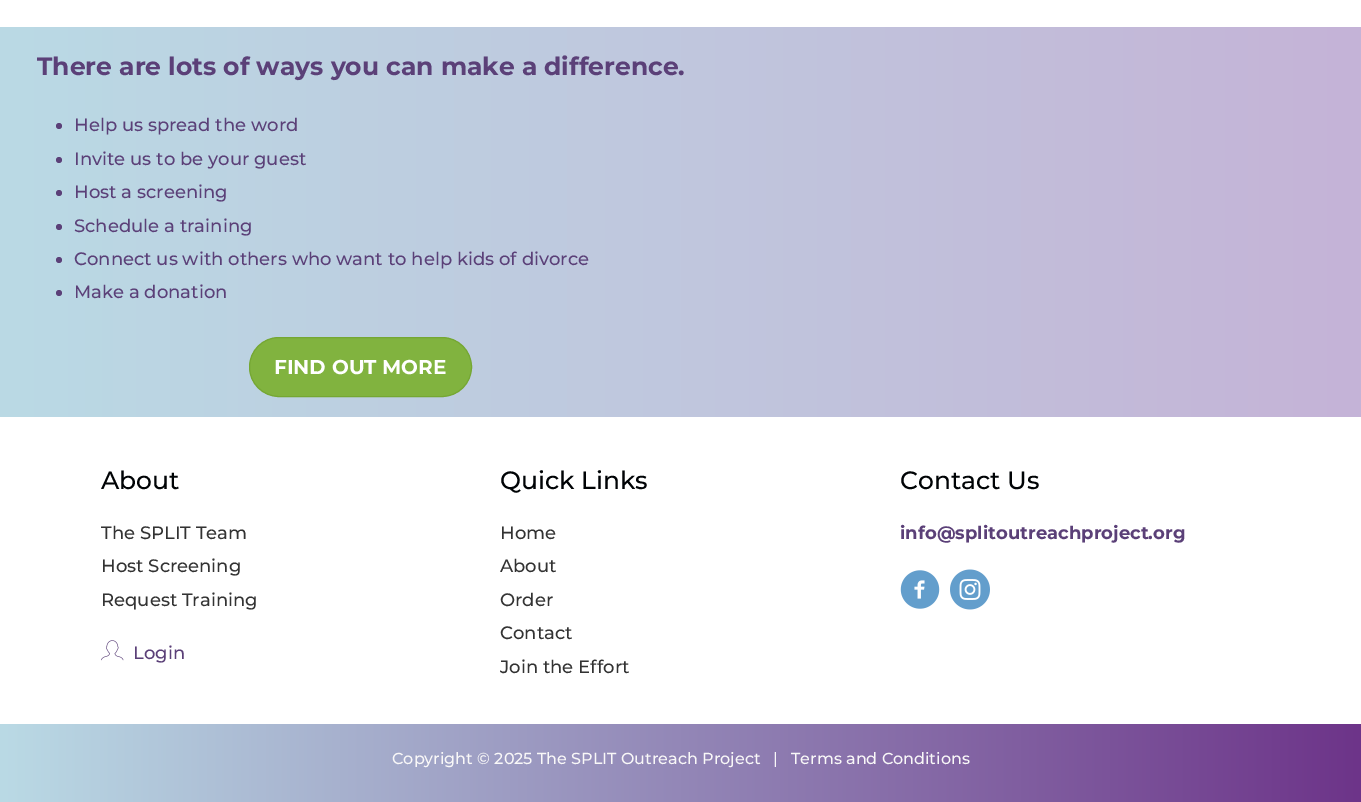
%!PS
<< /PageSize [1361 802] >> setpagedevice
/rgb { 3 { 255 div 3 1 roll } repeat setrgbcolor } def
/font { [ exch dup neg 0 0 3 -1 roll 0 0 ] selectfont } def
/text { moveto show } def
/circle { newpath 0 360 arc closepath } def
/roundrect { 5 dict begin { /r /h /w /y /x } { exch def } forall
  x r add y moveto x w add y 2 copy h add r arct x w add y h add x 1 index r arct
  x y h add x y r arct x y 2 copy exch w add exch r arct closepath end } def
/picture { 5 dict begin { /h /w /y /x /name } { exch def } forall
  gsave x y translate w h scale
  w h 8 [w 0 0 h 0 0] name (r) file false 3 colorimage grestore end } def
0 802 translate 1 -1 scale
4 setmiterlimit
255 255 255 rgb
0 0 1361 802 rectfill
gsave 0 27 moveto 1361 0 rlineto 0 390 rlineto -1361 0 rlineto closepath clip newpath
<< /ShadingType 2 /ColorSpace /DeviceRGB /Coords [0 222 1361 222] /Extend [true true] /Function << /FunctionType 2 /Domain [0 1] /C0 [0.729 0.855 0.898] /C1 [0.773 0.702 0.843] /N 1 >> >> shfill grestore
91 64 120 rgb
59 126 3 circle fill
59 160 3 circle fill
59 193 3 circle fill
59 227 3 circle fill
59 260 3 circle fill
59 293 3 circle fill
129 179 63 rgb
249.5 337.5 222 59 29.5 roundrect gsave fill grestore
117 167 51 rgb
stroke
(img_01.rgb) 101 640 23 21 picture
(img_02.rgb) 900 570 40 39 picture
(img_03.rgb) 950 569 40 41 picture
gsave 0 724 moveto 1361 0 rlineto 0 78 rlineto -1361 0 rlineto closepath clip newpath
<< /ShadingType 2 /ColorSpace /DeviceRGB /Coords [0 763 1361 763] /Extend [true true] /Function << /FunctionType 2 /Domain [0 1] /C0 [0.729 0.855 0.898] /C1 [0.427 0.204 0.537] /N 1 >> >> shfill grestore
/Montserrat-Bold 25 font
91 64 120 rgb
(There are lots of ways you can make a difference.) 37 75 text
/Montserrat-Medium 18 font
(Help us spread the word) 74 131 text
(Invite us to be your guest) 74 165 text
(Host a screening) 74 198 text
(Schedule a training) 74 232 text
(Connect us with others who want to help kids of divorce) 74 265 text
(Make a donation) 74 298 text
/Montserrat-Bold 20 font
255 255 255 rgb
(FIND OUT MORE) 274 374 text
/Montserrat-Medium 25 font
0 3 5 rgb
(About) 101 489 text
(Quick Links) 500 489 text
(Contact Us) 900 489 text
/Montserrat-Medium 18 font
51 51 51 rgb
(The SPLIT Team) 101 539 text
(Host Screening) 101 572 text
(Request Training) 101 606 text
91 64 120 rgb
(Login) 133 659 text
51 51 51 rgb
(Home) 500 539 text
(About) 500 572 text
(Order) 500 606 text
(Contact) 500 639 text
(Join the Effort) 500 673 text
/Montserrat-Bold 18 font
91 64 120 rgb
(info@splitoutreachproject.org) 900 539 text
/Montserrat-Medium 16 font
249 248 248 rgb
(Copyright © 2025 The SPLIT Outreach Project   |) 392 764 text
(Terms and Conditions) 791 764 text
showpage
